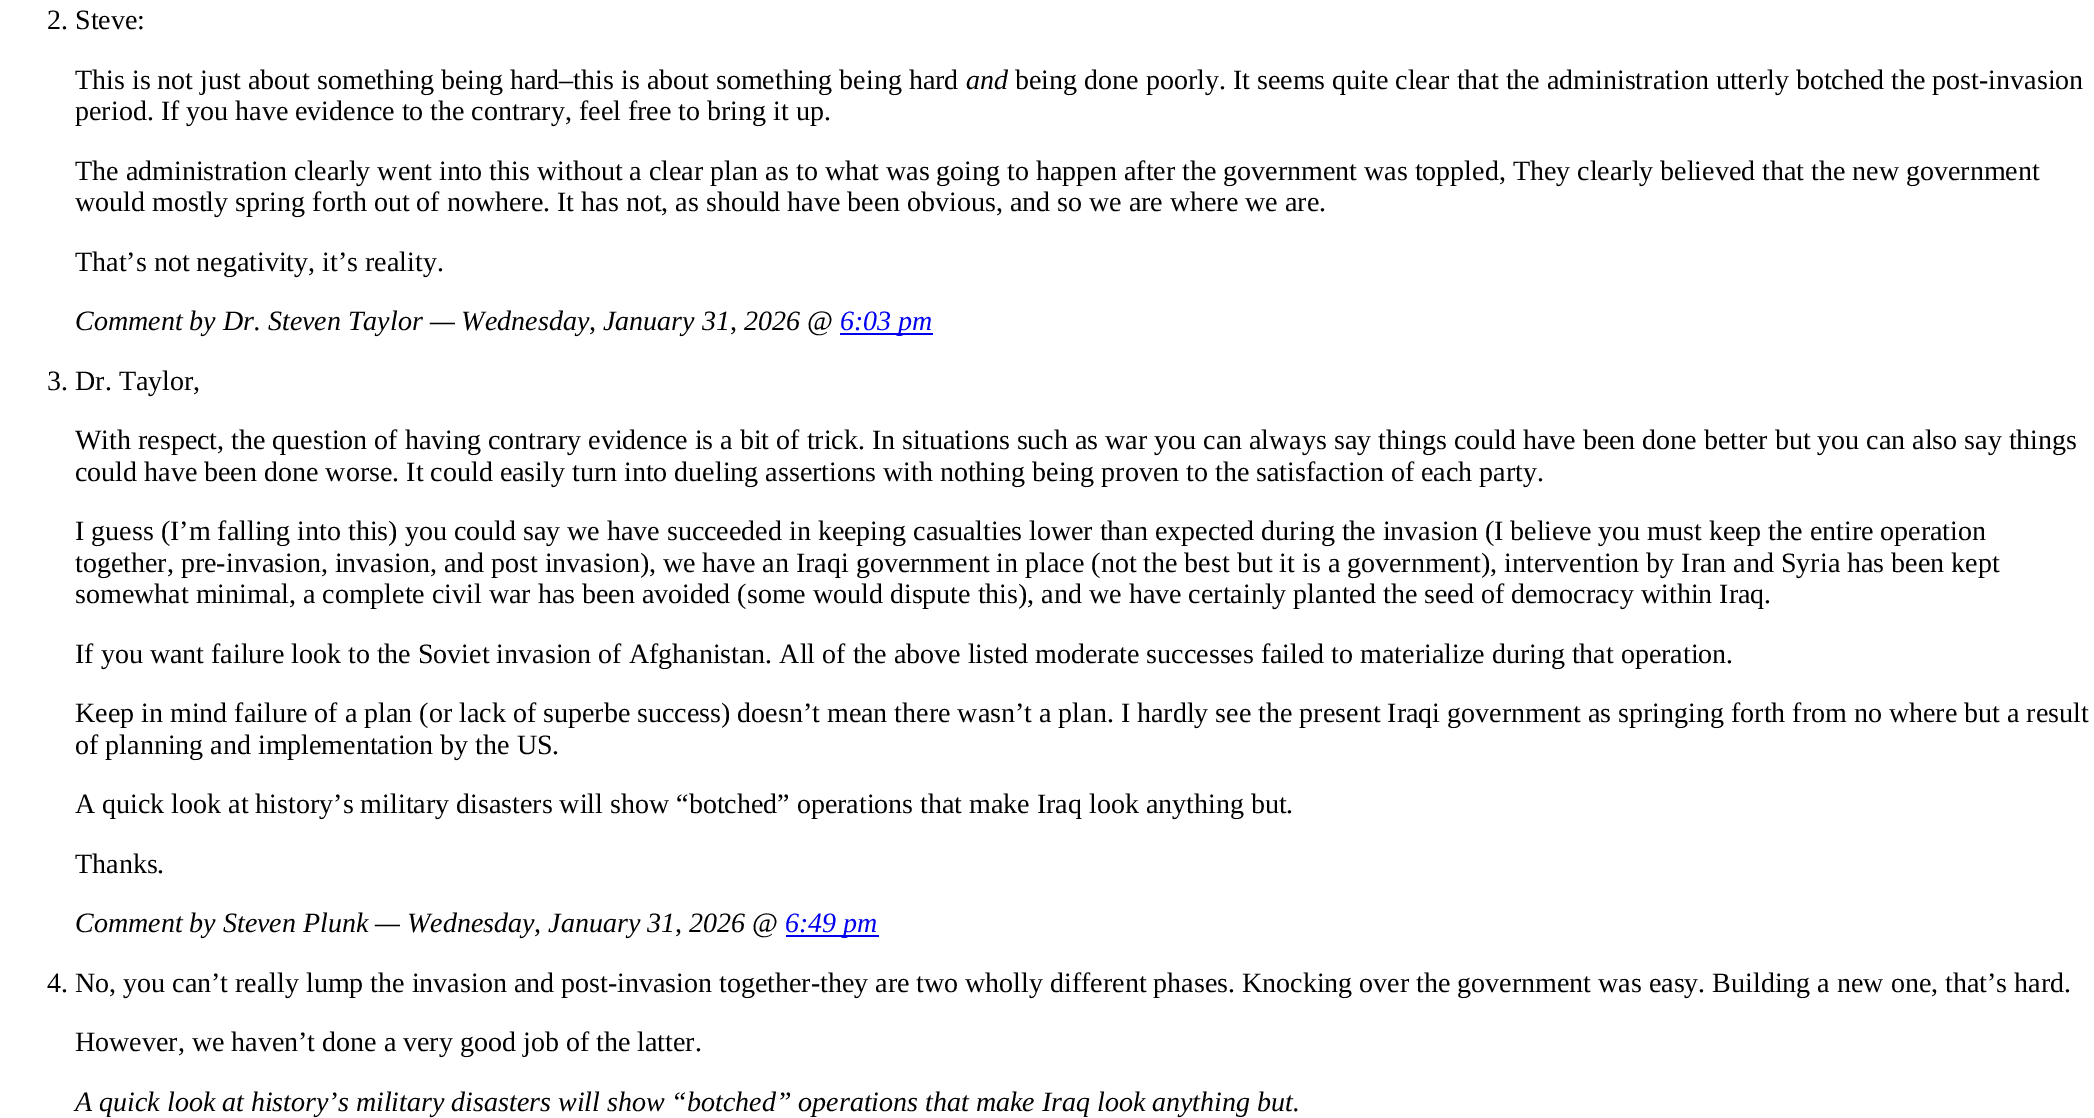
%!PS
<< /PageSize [2094 1118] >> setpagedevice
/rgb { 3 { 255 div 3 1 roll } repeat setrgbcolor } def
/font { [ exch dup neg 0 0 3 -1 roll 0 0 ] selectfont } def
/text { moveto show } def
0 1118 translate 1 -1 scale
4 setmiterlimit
255 255 255 rgb
0 0 2094 1118 rectfill
0 0 238 rgb
840 333 93 2 rectfill
786 935 93 2 rectfill
/LiberationSerif-Regular 28 font
0 0 0 rgb
(2. Steve:) 47 29 text
(This is not just about something being hard–this is about something being hard) 75 89 text
/LiberationSerif-Italic 28 font
(and) 966 89 text
/LiberationSerif-Regular 28 font
(being done poorly. It seems quite clear that the administration utterly botched the post-invasion) 1015 89 text
(period. If you have evidence to the contrary, feel free to bring it up.) 75 120 text
(The administration clearly went into this without a clear plan as to what was going to happen after the government was toppled, They clearly believed that the new government) 75 180 text
(would mostly spring forth out of nowhere. It has not, as should have been obvious, and so we are where we are.) 75 211 text
(That’s not negativity, it’s reality.) 75 271 text
/LiberationSerif-Italic 28 font
(Comment by Dr. Steven Taylor — Wednesday, January 31, 2026 @) 75 330 text
0 0 238 rgb
(6:03 pm) 840 330 text
/LiberationSerif-Regular 28 font
0 0 0 rgb
(3. Dr. Taylor,) 47 390 text
(With respect, the question of having contrary evidence is a bit of trick. In situations such as war you can always say things could have been done better but you can also say things) 75 449 text
(could have been done worse. It could easily turn into dueling assertions with nothing being proven to the satisfaction of each party.) 75 481 text
(I guess \(I’m falling into this\) you could say we have succeeded in keeping casualties lower than expected during the invasion \(I believe you must keep the entire operation) 75 540 text
(together, pre-invasion, invasion, and post invasion\), we have an Iraqi government in place \(not the best but it is a government\), intervention by Iran and Syria has been kept) 75 572 text
(somewhat minimal, a complete civil war has been avoided \(some would dispute this\), and we have certainly planted the seed of democracy within Iraq.) 75 603 text
(If you want failure look to the Soviet invasion of Afghanistan. All of the above listed moderate successes failed to materialize during that operation.) 75 663 text
(Keep in mind failure of a plan \(or lack of superbe success\) doesn’t mean there wasn’t a plan. I hardly see the present Iraqi government as springing forth from no where but a result) 75 722 text
(of planning and implementation by the US.) 75 754 text
(A quick look at history’s military disasters will show “botched” operations that make Iraq look anything but.) 75 813 text
(Thanks.) 75 873 text
/LiberationSerif-Italic 28 font
(Comment by Steven Plunk — Wednesday, January 31, 2026 @) 75 932 text
0 0 238 rgb
(6:49 pm) 785 932 text
/LiberationSerif-Regular 28 font
0 0 0 rgb
(4. No, you can’t really lump the invasion and post-invasion together-they are two wholly different phases. Knocking over the government was easy. Building a new one, that’s hard.) 47 992 text
(However, we haven’t done a very good job of the latter.) 75 1051 text
/LiberationSerif-Italic 28 font
(A quick look at history’s military disasters will show “botched” operations that make Iraq look anything but.) 75 1111 text
showpage
